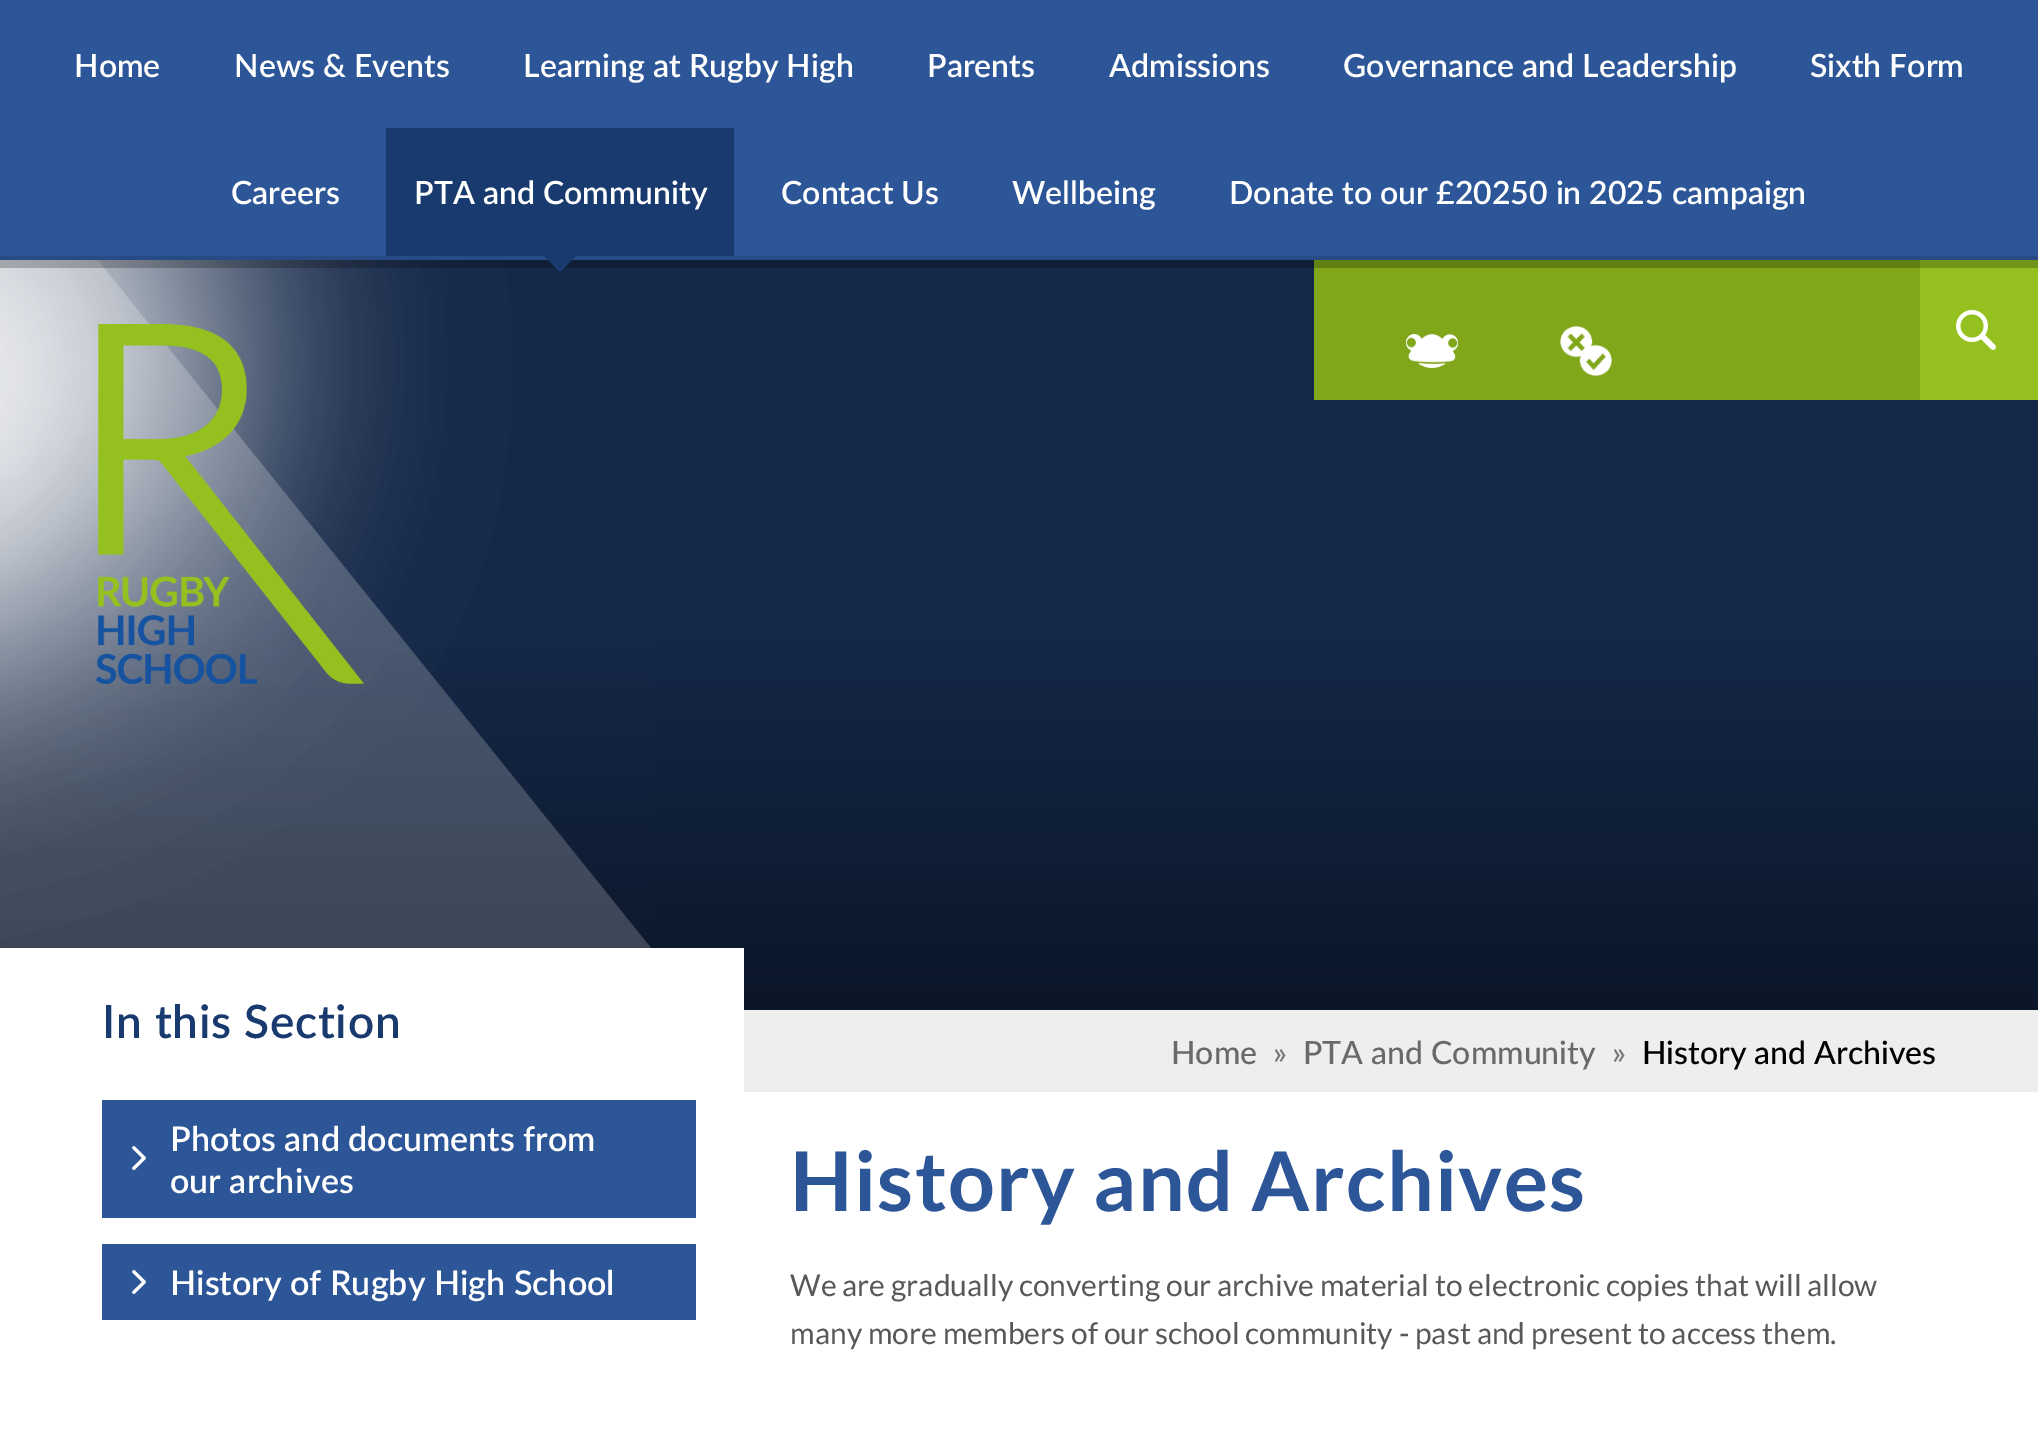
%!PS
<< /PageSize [2038 1451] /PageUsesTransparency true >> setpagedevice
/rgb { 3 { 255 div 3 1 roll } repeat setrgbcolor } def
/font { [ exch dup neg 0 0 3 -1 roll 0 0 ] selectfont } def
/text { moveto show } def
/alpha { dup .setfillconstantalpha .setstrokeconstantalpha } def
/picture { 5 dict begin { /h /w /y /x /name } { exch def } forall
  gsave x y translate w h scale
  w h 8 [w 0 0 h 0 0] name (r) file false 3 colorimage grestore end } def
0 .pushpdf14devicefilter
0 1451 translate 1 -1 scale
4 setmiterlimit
255 255 255 rgb
0 0 2038 1451 rectfill
44 86 151 rgb
0 0 2038 256 rectfill
gsave 0 260 moveto 2038 0 rlineto 0 750 rlineto -2038 0 rlineto closepath clip newpath
<< /ShadingType 2 /ColorSpace /DeviceRGB /Coords [1019 260 1019 1010] /Extend [true true] /Function << /FunctionType 3 /Domain [0 1] /Functions [<< /FunctionType 2 /Domain [0 1] /C0 [0.082 0.157 0.282] /C1 [0.082 0.157 0.282] /N 1 >> << /FunctionType 2 /Domain [0 1] /C0 [0.082 0.157 0.282] /C1 [0.043 0.086 0.157] /N 1 >>] /Bounds [0.5] /Encode [0 1 0 1] >> >> shfill grestore
128 167 26 rgb
1314 260 606 140 rectfill
148 193 31 rgb
1920 260 118 140 rectfill
(img_04.rgb) 0 260 651 688 picture
0.23 alpha
0 0 0 rgb
0 260 2038 8 rectfill
1 alpha
38 75 133 rgb
0 256 2038 4 rectfill
24 58 110 rgb
386 128 348 128 rectfill
544 256 moveto 32 0 rlineto -16 16 rlineto closepath fill
(img_01.rgb) 1406 334 52 34 picture
(img_02.rgb) 1560 326 52 50 picture
(img_03.rgb) 1956 310 40 40 picture
(img_05.rgb) 96 324 268 360 picture
255 255 255 rgb
0 948 744 62 rectfill
44 86 151 rgb
102 1100 594 118 rectfill
(img_06.rgb) 132 1146 14 24 picture
102 1244 594 76 rectfill
(img_06.rgb) 132 1270 14 24 picture
238 238 238 rgb
744 1010 1294 82 rectfill
/Lato-SemiBold 32 font
255 255 255 rgb
(Home) 74 77 text
(News & Events) 234 77 text
(Learning at Rugby High) 523 77 text
(Parents) 927 77 text
(Admissions) 1109 77 text
(Governance and Leadership) 1343 77 text
(Sixth Form) 1810 77 text
(Careers) 231 204 text
(PTA and Community) 414 204 text
(Contact Us) 781 204 text
(Wellbeing) 1012 204 text
(Donate to our £20250 in 2025 campaign) 1229 204 text
/Lato-SemiBold 46 font
24 58 110 rgb
102 1038 moveto 0.75 0 (In this Section) ashow
/Lato-SemiBold 34 font
255 255 255 rgb
(Photos and documents from) 170 1151 text
(our archives) 170 1193 text
(History of Rugby High School) 170 1295 text
/Lato-Bold 82.5 font
44 86 151 rgb
790 1211 moveto 1.25 0 (History and Archives) ashow
/Lato-Regular 30 font
88 88 88 rgb
(We are gradually converting our archive material to electronic copies that will allow) 790 1296 text
(many more members of our school community - past and present to access them.) 790 1344 text
/Lato-Medium 32 font
105 105 105 rgb
(Home) 1171 1064 text
121 121 121 rgb
(») 1273 1064 text
105 105 105 rgb
(PTA and Community) 1303 1064 text
121 121 121 rgb
(») 1612 1064 text
0 0 0 rgb
(History and Archives) 1642 1064 text
.poppdf14devicefilter showpage
